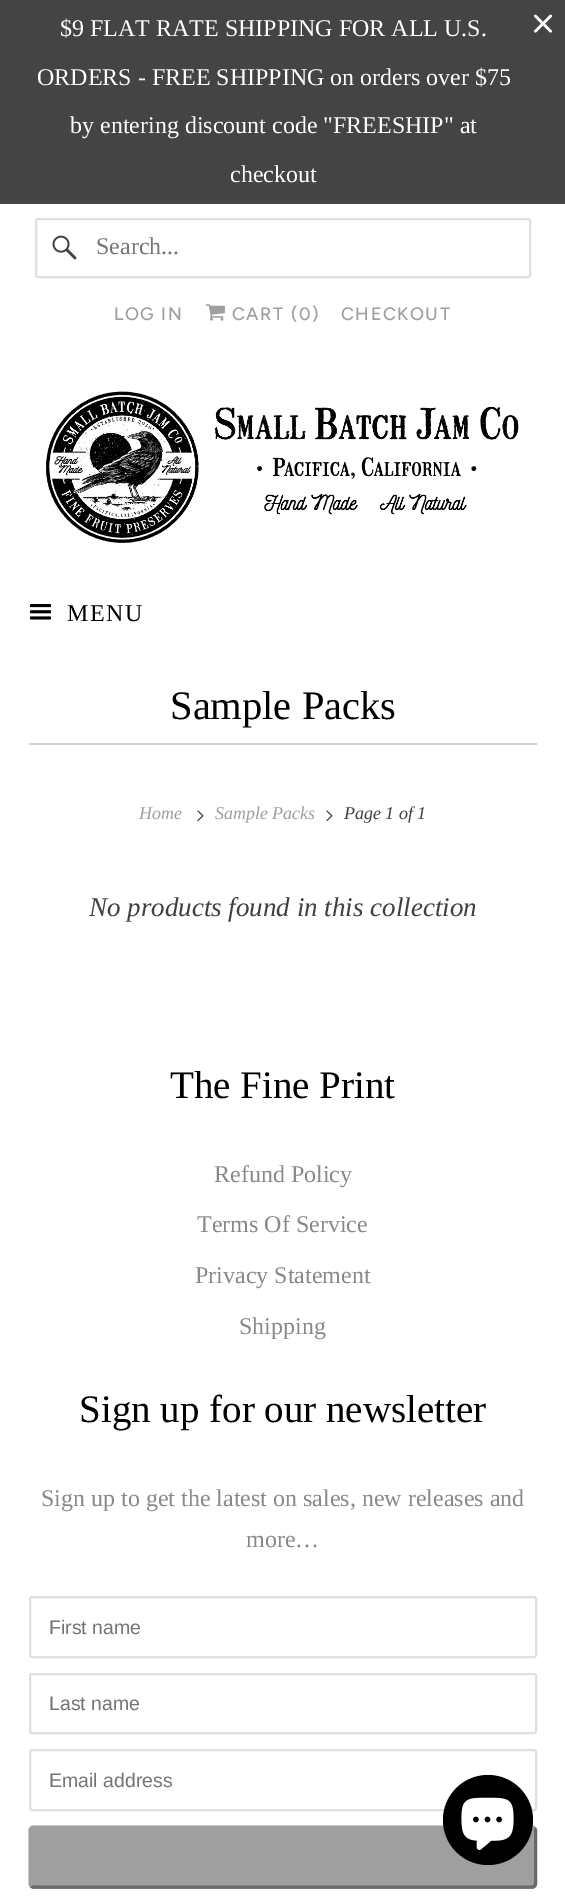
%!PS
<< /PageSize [565 1896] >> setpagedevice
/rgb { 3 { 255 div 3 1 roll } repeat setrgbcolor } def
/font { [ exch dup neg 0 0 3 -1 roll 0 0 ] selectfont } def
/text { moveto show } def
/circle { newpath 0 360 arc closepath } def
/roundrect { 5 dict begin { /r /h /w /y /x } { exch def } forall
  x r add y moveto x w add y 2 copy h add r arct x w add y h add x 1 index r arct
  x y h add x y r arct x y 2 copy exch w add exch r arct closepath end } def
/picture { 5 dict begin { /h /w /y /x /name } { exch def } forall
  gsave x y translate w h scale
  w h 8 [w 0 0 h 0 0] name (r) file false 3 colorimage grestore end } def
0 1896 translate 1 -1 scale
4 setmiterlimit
255 255 255 rgb
0 0 565 1896 rectfill
68 68 68 rgb
0 0 565 204 rectfill
(img_01.rgb) 534 14 18 19 picture
223 223 223 rgb
2 setlinewidth
36 219 494 58 2 roundrect stroke
(img_02.rgb) 52 235 25 25 picture
(img_03.rgb) 205 304 20 17 picture
(img_04.rgb) 46 391 473 152 picture
(img_05.rgb) 30 604 21 16 picture
211 211 211 rgb
29 743 508 2 rectfill
(img_06.rgb) 197 810 7 12 picture
(img_06.rgb) 326 810 7 12 picture
223 223 223 rgb
30 1597 506 60 2 roundrect stroke
30 1674 506 59 2 roundrect stroke
30 1750 506 60 2 roundrect stroke
159 159 159 rgb
29 1826 508 63 5 roundrect fill
106 106 106 rgb
3 setlinewidth
534.5 1828 moveto 1 2 rlineto 0 54 rlineto -1 2 rlineto -2 1 rlineto -499.5 0 rlineto -2 -1 rlineto stroke
159 159 159 rgb
31 1886 moveto -1 -2 rlineto 0 -54 rlineto 1 -2 rlineto 2 -1 rlineto 499.5 0 rlineto 2 1 rlineto stroke
0 0 0 rgb
488 1820 45 circle fill
(img_07.rgb) 461 1797 53 53 picture
/LiberationSerif-Regular 24 font
255 255 255 rgb
($9 FLAT RATE SHIPPING FOR ALL U.S.) 60 36 text
(ORDERS - FREE SHIPPING on orders over $75) 37 85 text
(by entering discount code "FREESHIP" at) 70 133 text
(checkout) 230 182 text
117 117 117 rgb
(Search...) 96 254 text
/Figtree-Medium 18 font
159 159 159 rgb
114 320 moveto 1.5 0 (LOG IN) ashow
232 320 moveto 1.5 0 (CART \(0\)) ashow
341 320 moveto 1.5 0 (CHECKOUT) ashow
/LiberationSerif-Regular 24 font
0 0 0 rgb
67 621 moveto 1.5 0 (MENU) ashow
/LiberationSerif-Regular 40.5 font
(Sample Packs) 170 719 text
/LiberationSerif-Italic 18 font
159 159 159 rgb
(Home) 139 819 text
(Sample Packs) 215 819 text
64 64 64 rgb
(Page 1 of 1) 344 819 text
/LiberationSerif-Italic 27 font
(No products found in this collection) 89 916 text
/LiberationSerif-Regular 39 font
0 0 0 rgb
(The Fine Print) 170 1098 text
/LiberationSerif-Regular 24 font
136 136 136 rgb
(Refund Policy) 214 1182 text
(Terms Of Service) 197 1232 text
(Privacy Statement) 195 1283 text
(Shipping) 239 1334 text
/LiberationSerif-Regular 39 font
0 0 0 rgb
(Sign up for our newsletter) 79 1422 text
/LiberationSerif-Regular 24 font
136 136 136 rgb
(Sign up to get the latest on sales, new releases and) 41 1506 text
(more…) 246 1547 text
/LiberationSans-Regular 19.5 font
117 117 117 rgb
(First name) 49 1634 text
(Last name) 49 1710 text
(Email address) 49 1787 text
showpage
